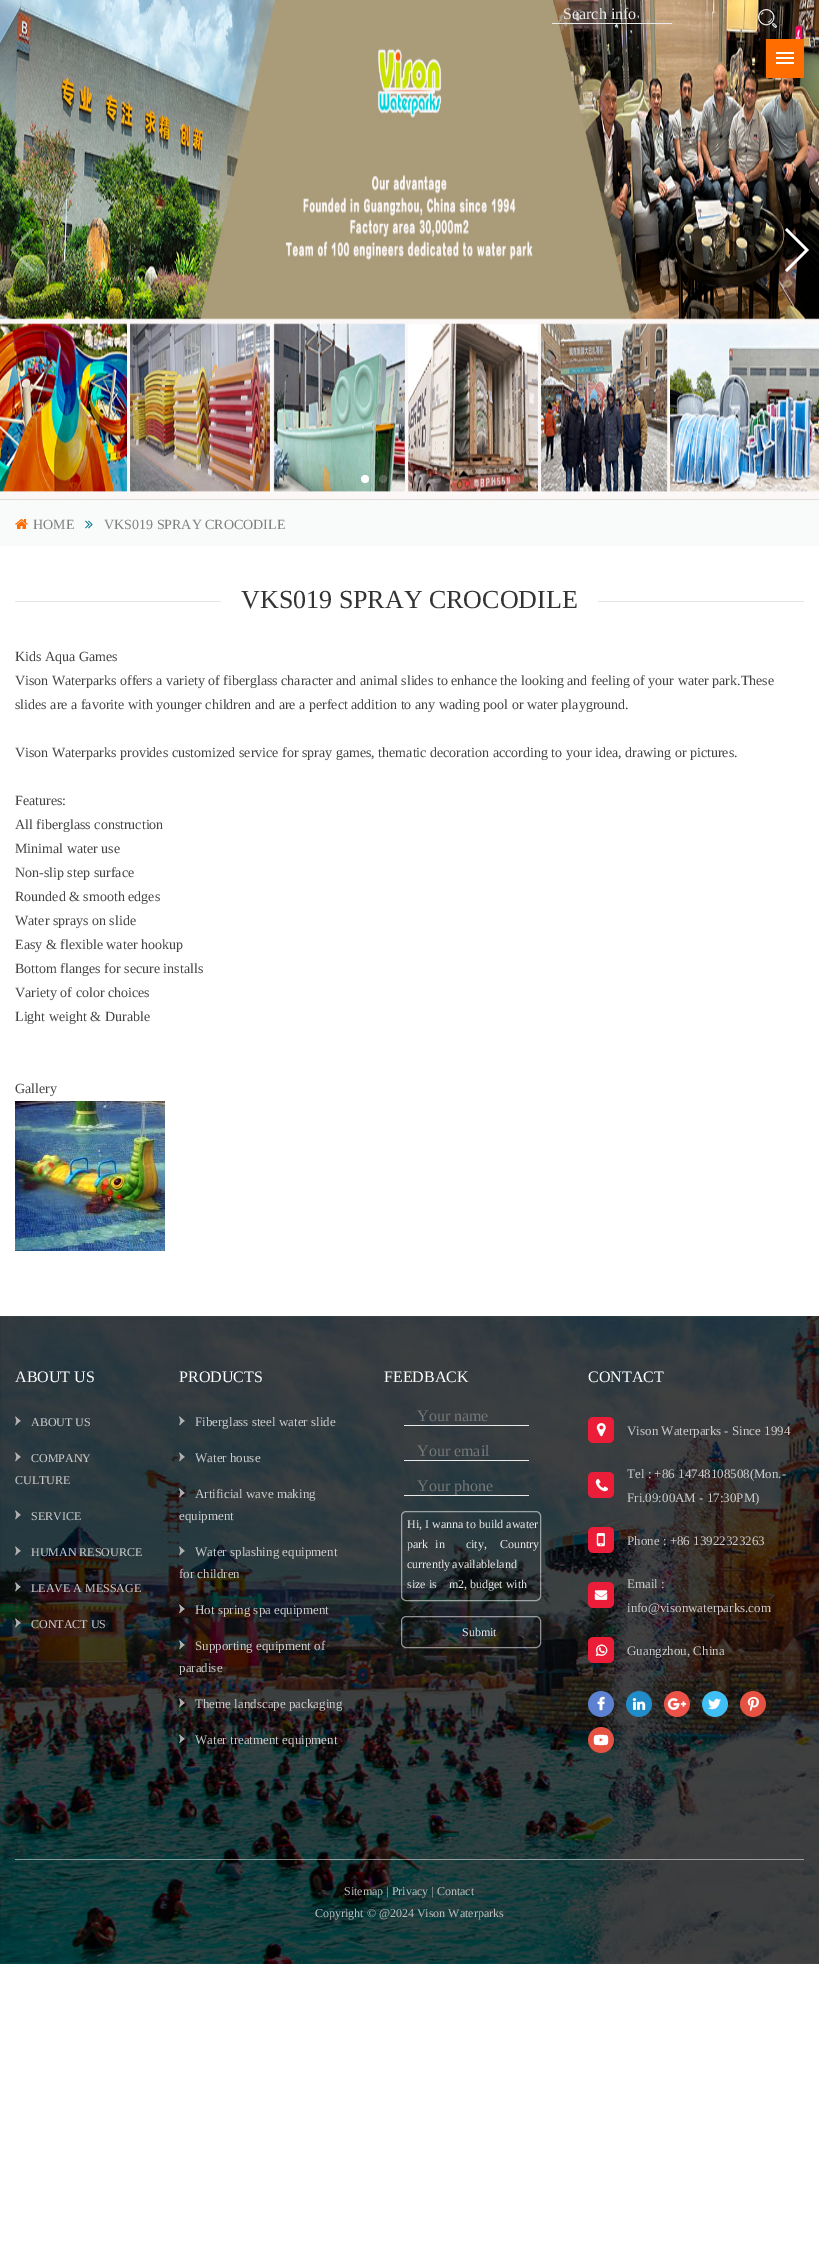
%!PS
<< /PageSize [819 2244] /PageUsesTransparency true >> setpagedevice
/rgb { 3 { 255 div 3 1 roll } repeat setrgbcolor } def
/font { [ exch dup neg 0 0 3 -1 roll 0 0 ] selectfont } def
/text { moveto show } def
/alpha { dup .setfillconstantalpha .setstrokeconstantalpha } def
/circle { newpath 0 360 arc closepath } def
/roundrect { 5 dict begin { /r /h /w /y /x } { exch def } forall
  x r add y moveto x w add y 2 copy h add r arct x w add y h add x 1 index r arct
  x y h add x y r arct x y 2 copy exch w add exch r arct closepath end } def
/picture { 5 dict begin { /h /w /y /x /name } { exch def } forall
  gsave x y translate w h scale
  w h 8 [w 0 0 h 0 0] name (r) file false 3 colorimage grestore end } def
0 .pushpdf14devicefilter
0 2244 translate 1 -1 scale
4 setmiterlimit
255 255 255 rgb
0 0 819 2244 rectfill
(img_01.rgb) 0 0 819 500 picture
0.35 alpha
10 250 moveto 22 -22 rlineto 2 2 rlineto -20 20 rlineto 20 20 rlineto -2 2 rlineto closepath fill
1 alpha
809 250 moveto -22 22 rlineto -2 -2 rlineto 20 -20 rlineto -20 -20 rlineto 2 -2 rlineto closepath fill
365 479 4 circle fill
0.2 alpha
383 479 4 circle fill
401 479 4 circle fill
419 479 4 circle fill
437 479 4 circle fill
455 479 4 circle fill
1 alpha
234 234 234 rgb
552 23 120 1 rectfill
(img_02.rgb) 758 9 19 19 picture
255 108 0 rgb
766 39 38 39 rectfill
255 255 255 rgb
776 52 18 2 rectfill
776 57 18 2 rectfill
776 62 18 2 rectfill
249 251 251 rgb
0 500 819 46 rectfill
(img_03.rgb) 15 519 13 10 picture
(img_04.rgb) 85 520 8 9 picture
229 229 229 rgb
15 601 789 1 rectfill
255 255 255 rgb
221 601 377 1 rectfill
(img_05.rgb) 15 1101 150 150 picture
(img_06.rgb) 0 1316 819 648 picture
(img_07.rgb) 15 1416 6 10 picture
(img_08.rgb) 15 1452 6 10 picture
(img_09.rgb) 15 1510 6 10 picture
(img_10.rgb) 15 1546 6 10 picture
(img_11.rgb) 15 1582 6 10 picture
(img_12.rgb) 15 1618 6 10 picture
(img_13.rgb) 179 1416 6 10 picture
(img_14.rgb) 179 1452 6 10 picture
(img_15.rgb) 179 1488 6 10 picture
(img_16.rgb) 179 1546 6 10 picture
(img_17.rgb) 179 1604 6 10 picture
(img_18.rgb) 179 1640 6 10 picture
(img_19.rgb) 179 1698 6 10 picture
(img_20.rgb) 179 1734 6 10 picture
234 234 234 rgb
404 1425 125 1 rectfill
404 1460 125 1 rectfill
404 1495 125 1 rectfill
0.53 alpha
255 255 255 rgb
401.5 1511.5 139 89 4.5 roundrect stroke
401.5 1616.5 139 31 4.5 roundrect stroke
1 alpha
(img_21.rgb) 588 1417 26 26 picture
(img_22.rgb) 588 1472 26 26 picture
(img_23.rgb) 588 1527 26 26 picture
(img_24.rgb) 588 1582 26 26 picture
(img_25.rgb) 588 1637 26 26 picture
(img_26.rgb) 588 1691 26 26 picture
(img_27.rgb) 626 1691 26 26 picture
(img_28.rgb) 664 1691 26 26 picture
(img_29.rgb) 702 1691 26 26 picture
(img_30.rgb) 740 1691 26 26 picture
(img_31.rgb) 588 1727 26 26 picture
0.5 alpha
15 1859 789 1 rectfill
/LiberationSerif-Regular 16 font
1 alpha
234 234 234 rgb
(Search info) 563 19 text
/LiberationSerif-Regular 14 font
128 128 128 rgb
(HOME) 33 529 text
(VKS019 SPRAY CROCODILE) 104 529 text
/LiberationSerif-Regular 26 font
51 51 51 rgb
(VKS019 SPRAY CROCODILE) 241 608 text
/LiberationSerif-Regular 14 font
68 68 68 rgb
(Kids Aqua Games) 15 661 text
(Vison Waterparks offers a variety of fiberglass character and animal slides to enhance the looking and feeling of your water park.These) 15 685 text
(slides are a favorite with younger children and are a perfect addition to any wading pool or water playground.) 15 709 text
(Vison Waterparks provides customized service for spray games, thematic decoration according to your idea, drawing or pictures.) 15 757 text
(Features:) 15 805 text
(All fiberglass construction) 15 829 text
(Minimal water use) 15 853 text
(Non-slip step surface) 15 877 text
(Rounded & smooth edges) 15 901 text
(Water sprays on slide) 15 925 text
(Easy & flexible water hookup) 15 949 text
(Bottom flanges for secure installs) 15 973 text
(Variety of color choices) 15 997 text
(Light weight & Durable) 15 1021 text
(Gallery) 15 1093 text
/LiberationSerif-Regular 16 font
255 255 255 rgb
(ABOUT US) 15 1382 text
/LiberationSerif-Regular 12 font
203 203 203 rgb
(ABOUT US) 31 1426 text
(COMPANY) 31 1462 text
(CULTURE) 15 1484 text
(SERVICE) 31 1520 text
(HUMAN RESOURCE) 31 1556 text
(LEAVE A MESSAGE) 31 1592 text
(CONTACT US) 31 1628 text
/LiberationSerif-Regular 16 font
255 255 255 rgb
(PRODUCTS) 179 1382 text
/LiberationSerif-Regular 13 font
203 203 203 rgb
(Fiberglass steel water slide) 195 1426 text
(Water house) 195 1462 text
(Artificial wave making) 195 1498 text
(equipment) 179 1520 text
(Water splashing equipment) 195 1556 text
(for children) 179 1578 text
(Hot spring spa equipment) 195 1614 text
(Supporting equipment of) 195 1650 text
(paradise) 179 1672 text
(Theme landscape packaging) 195 1708 text
(Water treatment equipment) 195 1744 text
/LiberationSerif-Regular 16 font
255 255 255 rgb
(FEEDBACK) 384 1382 text
117 117 117 rgb
(Your name) 417 1421 text
(Your email) 417 1456 text
(Your phone) 417 1491 text
/LiberationSerif-Regular 12 font
234 234 234 rgb
(Hi, I wanna to build awater) 407 1528 text
407 1548 moveto 4 0 32 (park in   city,) widthshow
(Country) 500 1548 text
407 1568 moveto -1 0 32 (currently available) widthshow
(land) 496 1568 text
(size is    m2, budget with) 407 1588 text
(Submit) 462 1636 text
/LiberationSerif-Regular 16 font
255 255 255 rgb
(CONTACT) 588 1382 text
/LiberationSerif-Regular 13 font
203 203 203 rgb
(Vison Waterparks - Since 1994) 627 1435 text
(Tel : +86 14748108508\(Mon.-) 627 1478 text
(Fri.09:00AM - 17:30PM\)) 627 1502 text
(Phone : +86 13922323263) 627 1545 text
(Email :) 627 1588 text
(info@visonwaterparks.com) 627 1612 text
(Guangzhou, China) 627 1655 text
/LiberationSerif-Regular 12 font
190 190 190 rgb
(Sitemap | Privacy | Contact) 344 1895 text
(Copyright © @2024 Vison Waterparks) 315 1917 text
.poppdf14devicefilter showpage
